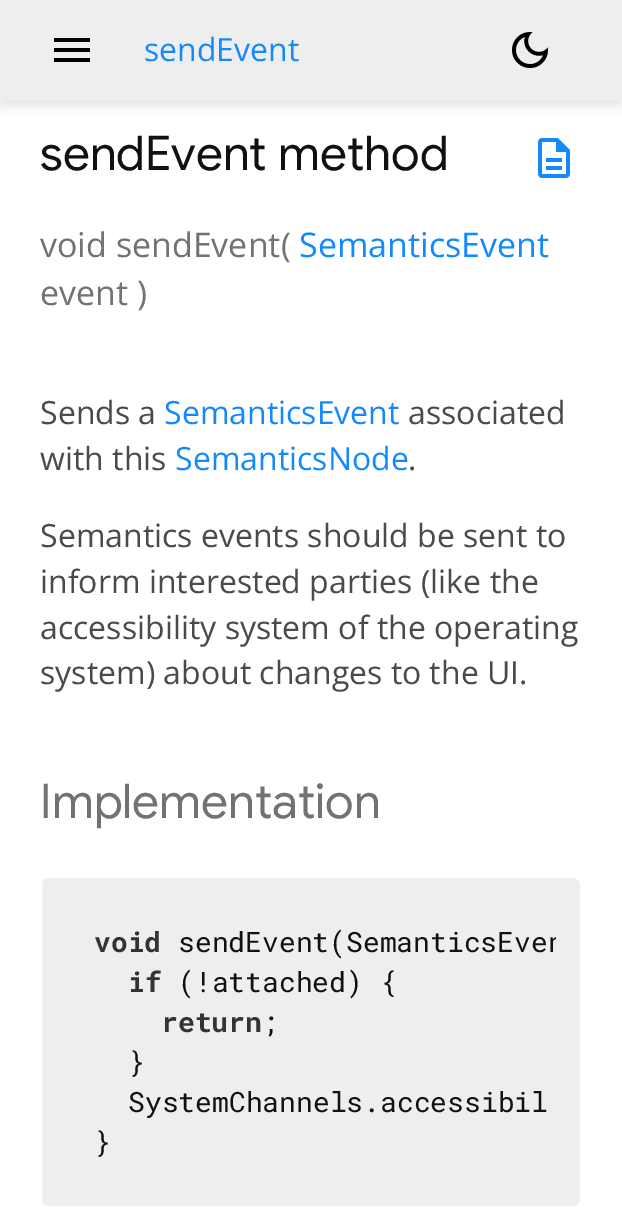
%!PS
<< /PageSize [622 1208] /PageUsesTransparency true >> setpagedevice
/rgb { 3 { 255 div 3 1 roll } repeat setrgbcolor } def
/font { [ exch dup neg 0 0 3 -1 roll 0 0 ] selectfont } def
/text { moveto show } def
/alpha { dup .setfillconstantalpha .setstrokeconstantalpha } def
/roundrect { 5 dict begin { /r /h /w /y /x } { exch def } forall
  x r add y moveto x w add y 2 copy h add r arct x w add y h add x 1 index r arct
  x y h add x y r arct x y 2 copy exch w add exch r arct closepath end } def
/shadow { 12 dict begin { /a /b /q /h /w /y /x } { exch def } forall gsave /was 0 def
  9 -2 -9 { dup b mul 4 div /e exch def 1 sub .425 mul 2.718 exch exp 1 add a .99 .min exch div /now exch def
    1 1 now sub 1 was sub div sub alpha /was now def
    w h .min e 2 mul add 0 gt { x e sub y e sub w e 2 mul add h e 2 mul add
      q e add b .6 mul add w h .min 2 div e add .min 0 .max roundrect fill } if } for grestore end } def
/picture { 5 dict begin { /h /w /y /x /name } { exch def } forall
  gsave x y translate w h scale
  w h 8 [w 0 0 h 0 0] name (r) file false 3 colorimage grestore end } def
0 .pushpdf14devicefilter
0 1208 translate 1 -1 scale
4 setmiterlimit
255 255 255 rgb
0 0 622 1208 rectfill
0 0 0 rgb
0 6 622 100 0 5 0.1 shadow
238 238 238 rgb
0 0 622 100 rectfill
0 0 0 rgb
54 62 moveto 0 -4 rlineto 36 0 rlineto 0 4 rlineto closepath 54 52 moveto 0 -4 rlineto 36 0 rlineto 0 4 rlineto closepath 54 42 moveto 0 -4 rlineto 36 0 rlineto 0 4 rlineto closepath fill
(img_01.rgb) 512 32 36 36 picture
(img_02.rgb) 538 138 32 40 picture
238 238 238 rgb
41 877 540 330 7 roundrect gsave fill grestore
255 255 255 rgb
2 setlinewidth
stroke
/OpenSans-Regular 32 font
19 137 253 rgb
(sendEvent) 144 61 text
/GoogleSans-Regular 48 font
17 17 17 rgb
(sendEvent method) 40 170 text
/OpenSans-Regular 34 font
114 114 114 rgb
(void sendEvent\() 40 257 text
19 137 253 rgb
(SemanticsEvent) 299 257 text
114 114 114 rgb
(event \)) 40 305 text
/OpenSans-Regular 32 font
74 74 74 rgb
(Sends a) 40 424 text
19 137 253 rgb
(SemanticsEvent) 164 424 text
74 74 74 rgb
(associated) 408 424 text
(with this) 40 470 text
19 137 253 rgb
(SemanticsNode) 175 470 text
74 74 74 rgb
(.) 408 470 text
(Semantics events should be sent to) 40 547 text
(inform interested parties \(like the) 40 593 text
(accessibility system of the operating) 40 639 text
(system\) about changes to the UI.) 40 684 text
/GoogleSans-Regular 48 font
114 114 114 rgb
(Implementation) 40 818 text
/RobotoMono-Bold 28 font
51 51 51 rgb
(void) 94 952 text
gsave
66 894 490 296 6 roundrect clip newpath
/RobotoMono-Regular 28 font
17 17 17 rgb
(sendEvent\(SemanticsEven) 178 952 text
grestore
(if) 128 992 text
/RobotoMono-Regular 28 font
17 17 17 rgb
(\(!attached\) {) 178 992 text
/RobotoMono-Bold 28 font
51 51 51 rgb
(return) 161 1032 text
/RobotoMono-Regular 28 font
17 17 17 rgb
(;) 262 1032 text
(}) 128 1072 text
(SystemChannels.accessibil) 128 1112 text
(}) 94 1152 text
.poppdf14devicefilter showpage
